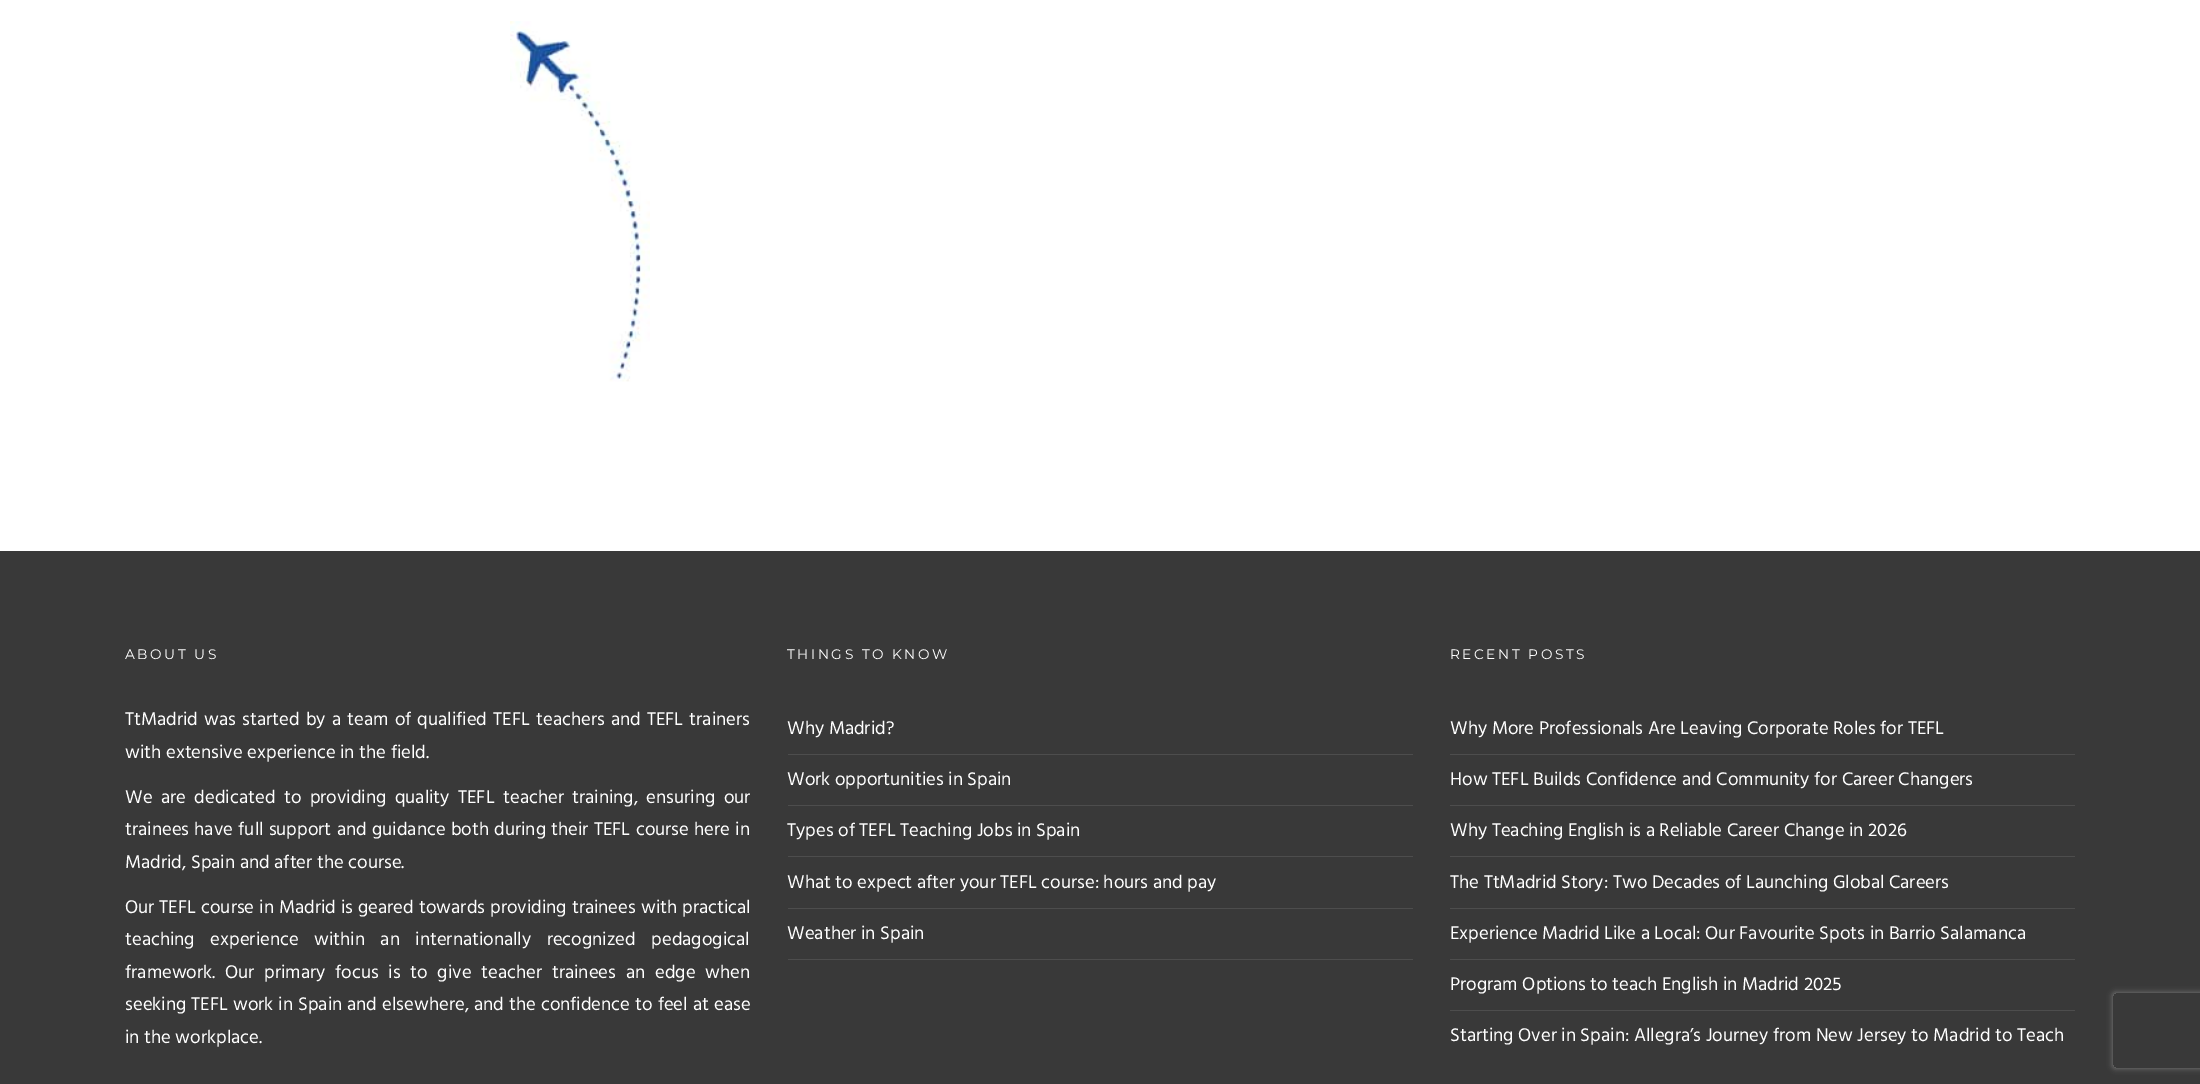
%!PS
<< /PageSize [2200 1084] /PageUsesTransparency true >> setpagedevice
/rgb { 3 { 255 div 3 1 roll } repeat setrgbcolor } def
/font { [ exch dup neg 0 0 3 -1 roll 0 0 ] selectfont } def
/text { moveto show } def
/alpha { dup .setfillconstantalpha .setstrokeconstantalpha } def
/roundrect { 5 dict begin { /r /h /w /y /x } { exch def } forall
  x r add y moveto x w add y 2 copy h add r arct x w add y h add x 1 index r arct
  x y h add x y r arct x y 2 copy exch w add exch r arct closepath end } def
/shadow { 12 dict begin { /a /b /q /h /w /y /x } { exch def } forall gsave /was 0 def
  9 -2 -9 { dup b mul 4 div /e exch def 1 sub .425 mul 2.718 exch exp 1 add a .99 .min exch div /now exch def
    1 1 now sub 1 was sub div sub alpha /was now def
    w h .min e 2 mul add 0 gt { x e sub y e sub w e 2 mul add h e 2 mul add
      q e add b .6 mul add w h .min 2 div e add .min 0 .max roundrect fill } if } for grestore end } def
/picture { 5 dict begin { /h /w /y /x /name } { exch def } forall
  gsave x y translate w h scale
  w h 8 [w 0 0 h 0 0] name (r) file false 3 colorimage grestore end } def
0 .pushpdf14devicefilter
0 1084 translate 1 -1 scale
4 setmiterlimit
255 255 255 rgb
0 0 2200 1084 rectfill
(img_01.rgb) 510 21 140 361 picture
57 57 57 rgb
0 551 2200 533 rectfill
77 77 77 rgb
788 754 625 1 rectfill
788 805 625 1 rectfill
788 856 625 1 rectfill
788 908 625 1 rectfill
788 959 625 1 rectfill
1450 754 625 1 rectfill
1450 805 625 1 rectfill
1450 856 625 1 rectfill
1450 908 625 1 rectfill
1450 959 625 1 rectfill
1450 1010 625 1 rectfill
gsave
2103 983 moveto 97 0 rlineto 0 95 rlineto -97 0 rlineto closepath 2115.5 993 moveto 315 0 rlineto 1.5 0 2.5 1 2.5 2.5 rcurveto 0 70 rlineto 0 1.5 -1 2.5 -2.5 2.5 rcurveto -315 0 rlineto -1.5 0 -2.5 -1 -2.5 -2.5 rcurveto 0 -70 rlineto 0 -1.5 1 -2.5 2.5 -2.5 rcurveto closepath eoclip newpath
128 128 128 rgb
2113 993 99 75 2.5 3 1 shadow
grestore
/Montserrat-Regular 13.75 font
255 255 255 rgb
125 659 moveto 2.5 0 (ABOUT US) ashow
/Hind-Regular 18.75 font
125 725 moveto 1.6 0 32 (TtMadrid was started by a team of qualified TEFL teachers and TEFL trainers) widthshow
(with extensive experience in the field.) 125 758 text
125 803 moveto 3.9 0 32 (We are dedicated to providing quality TEFL teacher training, ensuring our) widthshow
125 835 moveto 0.75 0 32 (trainees have full support and guidance both during their TEFL course here in) widthshow
(Madrid, Spain and after the course.) 125 868 text
125 913 moveto 0.5 0 32 (Our TEFL course in Madrid is geared towards providing trainees with practical) widthshow
125 945 moveto 11 0 32 (teaching experience within an internationally recognized pedagogical) widthshow
125 978 moveto 5.25 0 32 (framework. Our primary focus is to give teacher trainees an edge when) widthshow
125 1010 moveto 0.5 0 32 (seeking TEFL work in Spain and elsewhere, and the confidence to feel at ease) widthshow
(in the workplace.) 125 1043 text
/Montserrat-Regular 13.75 font
787 659 moveto 2.5 0 (THINGS TO KNOW) ashow
/Hind-Regular 18.75 font
(Why Madrid?) 787 734 text
(Work opportunities in Spain) 787 785 text
(Types of TEFL Teaching Jobs in Spain) 787 836 text
(What to expect after your TEFL course: hours and pay) 787 888 text
(Weather in Spain) 787 939 text
/Montserrat-Regular 13.75 font
1450 659 moveto 2.5 0 (RECENT POSTS) ashow
/Hind-Regular 18.75 font
(Why More Professionals Are Leaving Corporate Roles for TEFL) 1450 734 text
(How TEFL Builds Confidence and Community for Career Changers) 1450 785 text
(Why Teaching English is a Reliable Career Change in 2026) 1450 836 text
(The TtMadrid Story: Two Decades of Launching Global Careers) 1450 888 text
(Experience Madrid Like a Local: Our Favourite Spots in Barrio Salamanca) 1450 939 text
(Program Options to teach English in Madrid 2025) 1450 990 text
(Starting Over in Spain: Allegra’s Journey from New Jersey to Madrid to Teach) 1450 1041 text
.poppdf14devicefilter showpage
